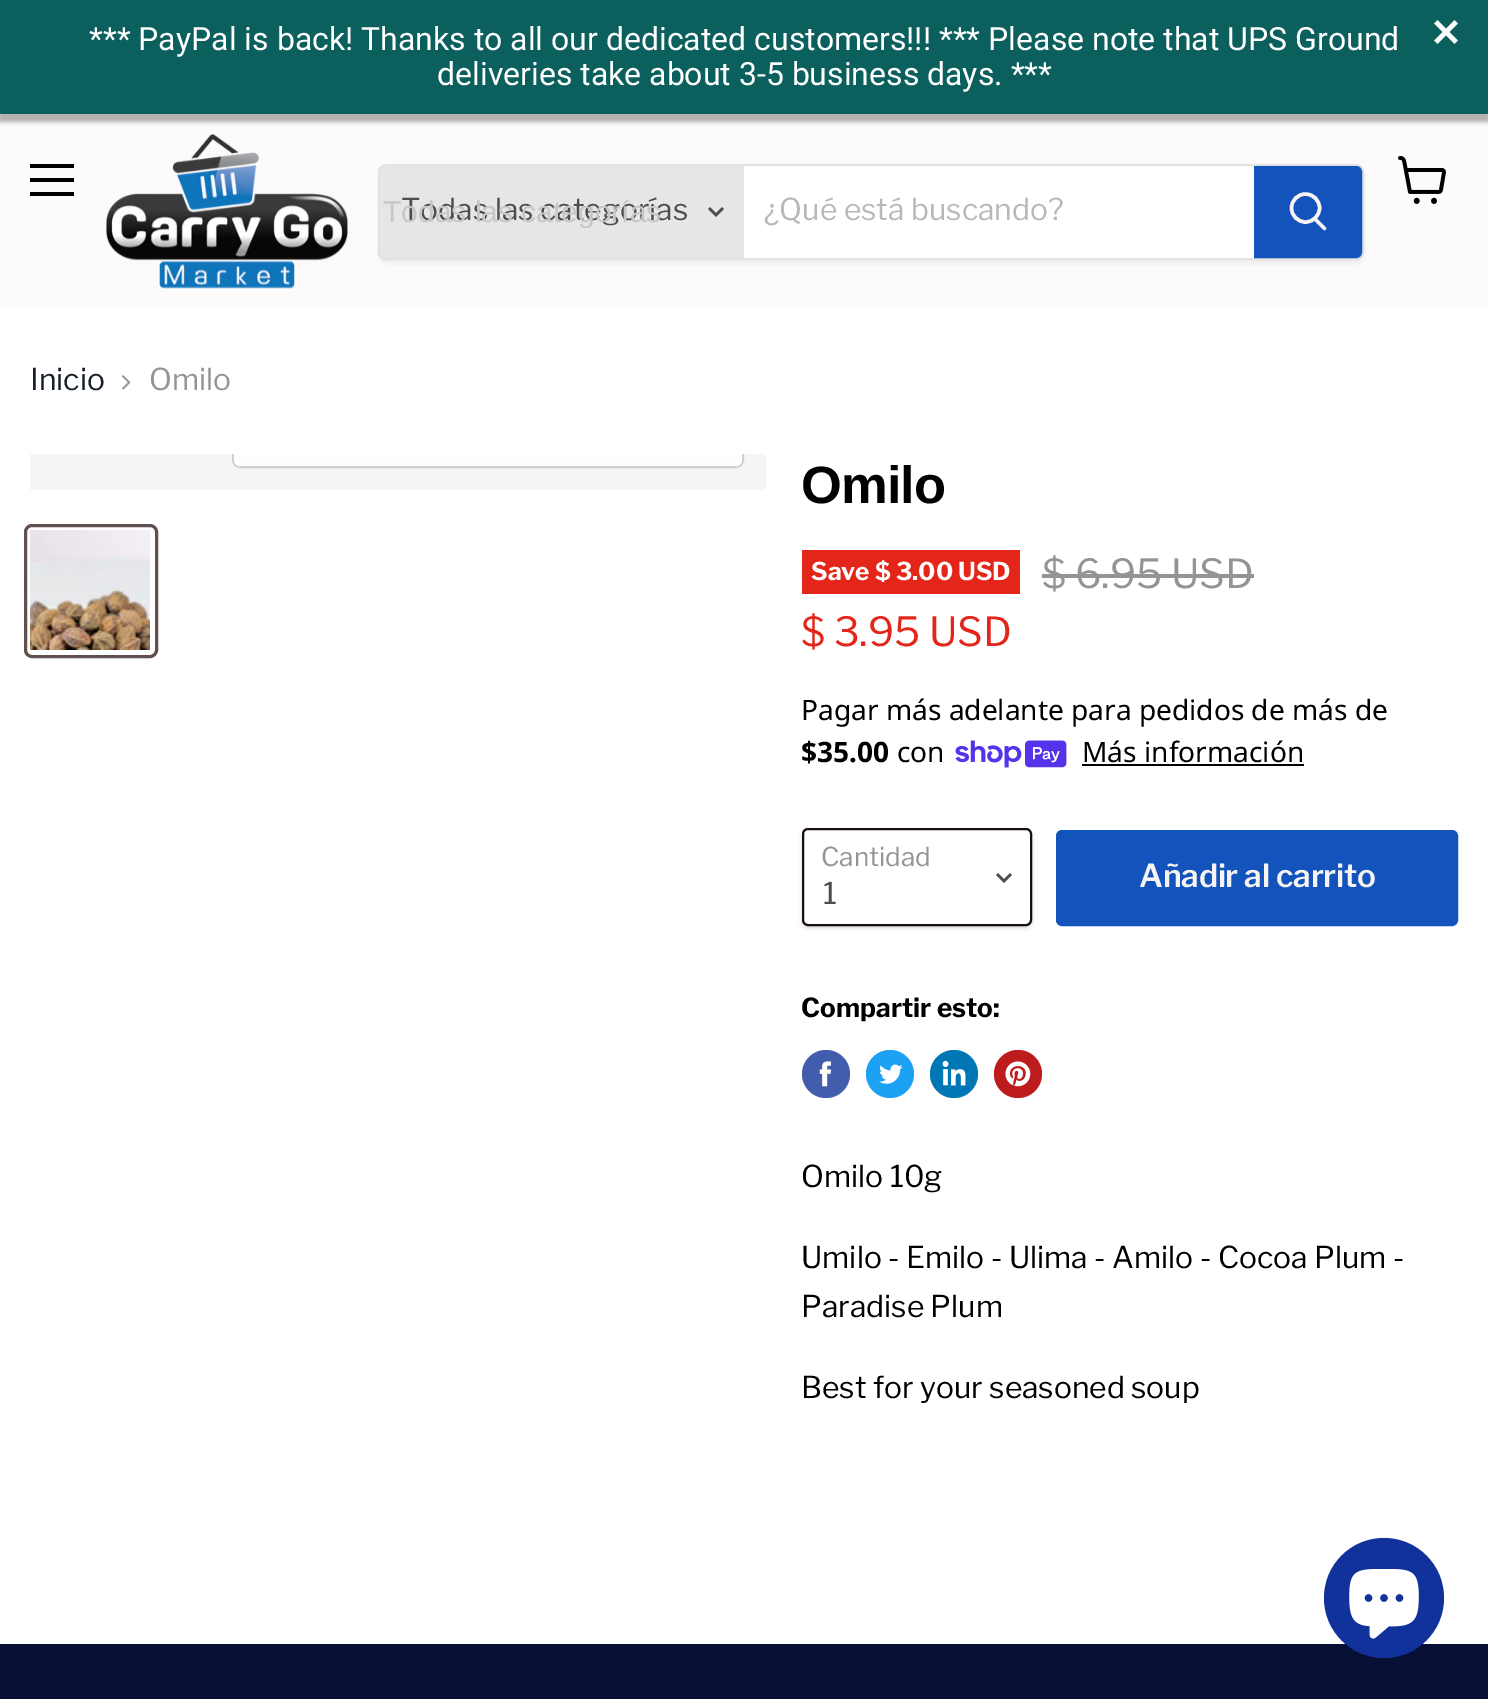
%!PS
<< /PageSize [1488 1699] /PageUsesTransparency true >> setpagedevice
/rgb { 3 { 255 div 3 1 roll } repeat setrgbcolor } def
/font { [ exch dup neg 0 0 3 -1 roll 0 0 ] selectfont } def
/text { moveto show } def
/alpha { dup .setfillconstantalpha .setstrokeconstantalpha } def
/circle { newpath 0 360 arc closepath } def
/roundrect { 5 dict begin { /r /h /w /y /x } { exch def } forall
  x r add y moveto x w add y 2 copy h add r arct x w add y h add x 1 index r arct
  x y h add x y r arct x y 2 copy exch w add exch r arct closepath end } def
/shadow { 12 dict begin { /a /b /q /h /w /y /x } { exch def } forall gsave /was 0 def
  9 -2 -9 { dup b mul 4 div /e exch def 1 sub .425 mul 2.718 exch exp 1 add a .99 .min exch div /now exch def
    1 1 now sub 1 was sub div sub alpha /was now def
    w h .min e 2 mul add 0 gt { x e sub y e sub w e 2 mul add h e 2 mul add
      q e add b .6 mul add w h .min 2 div e add .min 0 .max roundrect fill } if } for grestore end } def
/picture { 5 dict begin { /h /w /y /x /name } { exch def } forall
  gsave x y translate w h scale
  w h 8 [w 0 0 h 0 0] name (r) file false 3 colorimage grestore end } def
0 .pushpdf14devicefilter
0 1699 translate 1 -1 scale
4 setmiterlimit
255 255 255 rgb
0 0 1488 1699 rectfill
252 250 250 rgb
0 114 1488 194 rectfill
0 0 0 rgb
-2 4 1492 118 0 2 0.3 shadow
11 95 93 rgb
0 0 1488 114 rectfill
(img_01.rgb) 1434 20 24 24 picture
0 0 0 rgb
30 164 44 4 rectfill
30 178 44 4 rectfill
30 192 44 4 rectfill
(img_02.rgb) 1398 156 48 48 picture
(img_03.rgb) 106 134 242 155 picture
gsave
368 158 moveto 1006 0 rlineto 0 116 rlineto -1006 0 rlineto closepath 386 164 moveto 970 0 rlineto 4.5 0 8 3.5 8 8 rcurveto 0 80 rlineto 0 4.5 -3.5 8 -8 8 rcurveto -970 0 rlineto -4.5 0 -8 -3.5 -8 -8 rcurveto 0 -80 rlineto 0 -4.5 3.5 -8 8 -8 rcurveto closepath eoclip newpath
128 128 128 rgb
378 168 986 96 8 3 0.11 shadow
grestore
0.2 alpha
128 128 128 rgb
2 setlinewidth
379 165 984 94 7 roundrect stroke
1 alpha
230 230 230 rgb
386 166 moveto 358 0 rlineto 0 92 rlineto -358 0 rlineto -3.5 0 -6 -2.5 -6 -6 rcurveto 0 -80 rlineto 0 -3.5 2.5 -6 6 -6 rcurveto closepath fill
77 77 77 rgb
2.5 setlinewidth
2 setlinecap
716 215 moveto 6 -6 rlineto 716 215 moveto -6 -6 rlineto stroke
255 255 255 rgb
744 166 510 92 rectfill
18 83 188 rgb
1255 167 moveto 101 0 rlineto 3 0 5 2 5 5 rcurveto 0 80 rlineto 0 3 -2 5 -5 5 rcurveto -101 0 rlineto closepath gsave fill grestore
2 setlinewidth
0 setlinecap
stroke
249 244 244 rgb
3.5 setlinewidth
1 setlinecap
1324.5 228.5 moveto -9.5 -9.5 rlineto stroke
0 setlinecap
1305.5 208 14 circle stroke
(img_04.rgb) 122 375 9 15 picture
245 245 245 rgb
30 454 736 36 rectfill
gsave
30 454 736 36 rectclip
208 208 208 rgb
2 setlinewidth
233 411 510 56 7 roundrect stroke
grestore
0.9 alpha
255 255 255 rgb
234 454 moveto 508 0 rlineto 0 6 rlineto 0 3.5 -2.5 6 -6 6 rcurveto -496 0 rlineto -3.5 0 -6 -2.5 -6 -6 rcurveto closepath fill
1 alpha
98 80 80 rgb
3 setlinewidth
25.5 525.5 131 131 6.5 roundrect stroke
(img_05.rgb) 30 530 120 120 picture
148 148 148 rgb
1042 574 212 4 rectfill
227 38 25 rgb
802 550 218 44 rectfill
(img_06.rgb) 955 740 112 28 picture
0 0 0 rgb
1082 764 222 2 rectfill
802 830 230 98 6 2 0.15 shadow
255 255 255 rgb
803 829 228 96 5 roundrect gsave fill grestore
25 15 15 rgb
2 setlinewidth
stroke
77 77 77 rgb
2.5 setlinewidth
2 setlinecap
1004 881 moveto 6 -6 rlineto 1004 881 moveto -6 -6 rlineto stroke
18 83 188 rgb
1057 831 400 94 5 roundrect gsave fill grestore
2 setlinewidth
0 setlinecap
stroke
66 93 171 rgb
826 1074 24 circle fill
(img_07.rgb) 819 1061 12 26 picture
29 161 242 rgb
890 1074 24 circle fill
(img_08.rgb) 879 1064 24 20 picture
0 119 181 rgb
954 1074 24 circle fill
(img_09.rgb) 942 1060 24 26 picture
189 28 28 rgb
1018 1074 24 circle fill
(img_10.rgb) 1005 1061 26 26 picture
7 15 53 rgb
0 1644 1488 55 rectfill
17 50 155 rgb
1384 1598 60 circle fill
(img_11.rgb) 1349 1569 70 70 picture
/Roboto-Regular 32 font
255 255 255 rgb
(*** PayPal is back! Thanks to all our dedicated customers!!! *** Please note that UPS Ground) 89 50 text
(deliveries take about 3-5 business days. ***) 437 85 text
/LibreFranklin-Regular 30 font
77 77 77 rgb
(Todas las categorías) 401 220 text
gsave
382 194 360 34 rectclip
/LiberationSans-Regular 30 font
199 199 199 rgb
(Todas las categorías) 383 222 text
grestore
184 184 184 rgb
(¿Qué está buscando?) 764 220 text
23 31 43 rgb
(Inicio) 30 390 text
148 148 148 rgb
(Omilo) 149 390 text
/Arimo-Bold 52.5 font
0 0 0 rgb
801 503 moveto -1 0 (Omilo) ashow
/LibreFranklin-Regular 40 font
148 148 148 rgb
($ 6.95 USD) 1042 588 text
227 38 25 rgb
($ 3.95 USD) 801 646 text
/LibreFranklin-Bold 24.5 font
255 255 255 rgb
(Save $ 3.00 USD) 811 580 text
/NotoSans-Regular 28.1 font
0 0 0 rgb
(Pagar más adelante para pedidos de más de) 801 720 text
/NotoSans-Bold 28.1 font
($35.00) 801 762 text
/NotoSans-Regular 28.1 font
(con) 897 762 text
(Más información) 1082 762 text
/LibreFranklin-Regular 26 font
148 148 148 rgb
(Cantidad) 821 866 text
/LibreFranklin-Regular 30 font
77 77 77 rgb
(1) 823 904 text
/LibreFranklin-SemiBold 31.75 font
249 244 244 rgb
1139 887 moveto -0.3 0 (Añadir al carrito) ashow
/LibreFranklin-Bold 26.25 font
0 0 0 rgb
(Compartir esto:) 801 1017 text
/LibreFranklin-Regular 30 font
(Omilo 10g) 801 1187 text
(Umilo - Emilo - Ulima - Amilo - Cocoa Plum -) 801 1268 text
(Paradise Plum) 801 1317 text
(Best for your seasoned soup) 801 1398 text
.poppdf14devicefilter showpage
